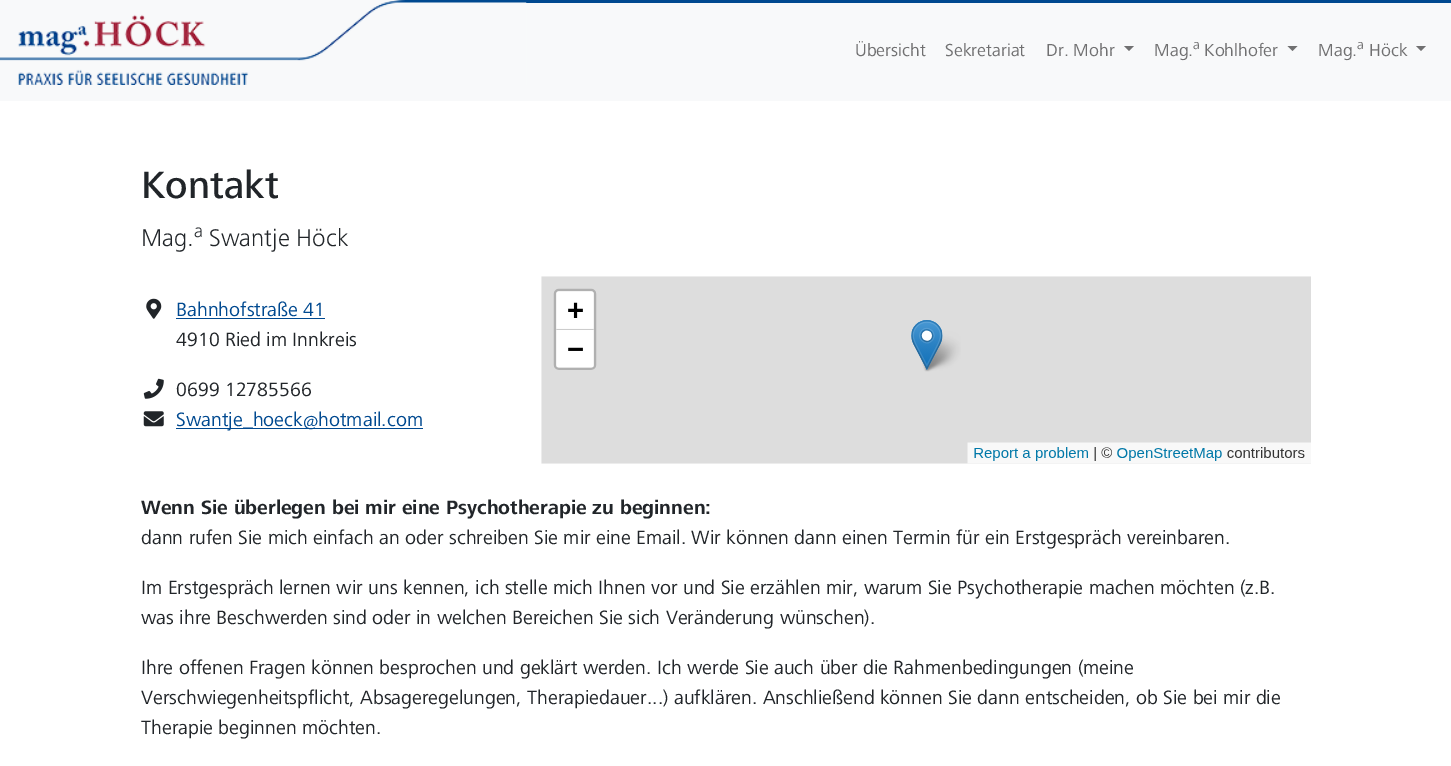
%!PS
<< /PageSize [1451 766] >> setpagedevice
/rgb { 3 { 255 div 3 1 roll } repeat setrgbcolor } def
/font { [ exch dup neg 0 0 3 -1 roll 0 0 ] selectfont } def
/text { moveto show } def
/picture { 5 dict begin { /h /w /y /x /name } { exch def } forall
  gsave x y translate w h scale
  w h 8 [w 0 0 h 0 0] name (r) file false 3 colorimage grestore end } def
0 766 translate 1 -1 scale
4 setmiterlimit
255 255 255 rgb
0 0 1451 766 rectfill
248 249 250 rgb
0 3 1451 98 rectfill
0 73 144 rgb
526 0 925 3 rectfill
(img_01.rgb) 0 0 527 85 picture
112 112 113 rgb
1124 46 moveto 10 0 rlineto -5 5 rlineto closepath fill
1287.5 46 moveto 10 0 rlineto -5 5 rlineto closepath fill
1416 46 moveto 10 0 rlineto -5 5 rlineto closepath fill
(img_02.rgb) 146 298 16 21 picture
0 73 144 rgb
176 318 149 1 rectfill
(img_03.rgb) 143 378 21 21 picture
(img_04.rgb) 143 411 21 16 picture
176 428 247 1 rectfill
(img_05.rgb) 541 276 770 188 picture
/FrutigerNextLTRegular-Regular 18 font
112 112 113 rgb
(Übersicht) 855 56 text
(Sekretariat) 945 56 text
(Dr. Mohr) 1046 56 text
(Mag.) 1154 56 text
/FrutigerNextLTRegular-Regular 14 font
(a) 1193 49 text
/FrutigerNextLTRegular-Regular 18 font
(Kohlhofer) 1204 56 text
(Mag.) 1318 56 text
/FrutigerNextLTRegular-Regular 14 font
(a) 1357 49 text
/FrutigerNextLTRegular-Regular 18 font
(Höck) 1369 56 text
/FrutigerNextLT-Medium 39.5 font
33 37 41 rgb
(Kontakt) 141 198 text
/FrutigerNextLT-Light 25 font
(Mag.) 141 246 text
/FrutigerNextLT-Light 19 font
(a) 194 237 text
/FrutigerNextLT-Light 25 font
(Swantje Höck) 209 246 text
/FrutigerNextLTRegular-Regular 20 font
0 73 144 rgb
(Bahnhofstraße 41) 176 316 text
33 37 41 rgb
(4910 Ried im Innkreis) 176 346 text
(0699 12785566) 176 396 text
0 73 144 rgb
(Swantje_hoeck@hotmail.com) 176 426 text
/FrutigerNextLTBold-Bold 20 font
33 37 41 rgb
(Wenn Sie überlegen bei mir eine Psychotherapie zu beginnen:) 141 514 text
/FrutigerNextLTRegular-Regular 20 font
(dann rufen Sie mich einfach an oder schreiben Sie mir eine Email. Wir können dann einen Termin für ein Erstgespräch vereinbaren.) 141 544 text
(Im Erstgespräch lernen wir uns kennen, ich stelle mich Ihnen vor und Sie erzählen mir, warum Sie Psychotherapie machen möchten \(z.B.) 141 594 text
(was ihre Beschwerden sind oder in welchen Bereichen Sie sich Veränderung wünschen\).) 141 624 text
(Ihre offenen Fragen können besprochen und geklärt werden. Ich werde Sie auch über die Rahmenbedingungen \(meine) 141 674 text
(Verschwiegenheitspflicht, Absageregelungen, Therapiedauer...\) aufklären. Anschließend können Sie dann entscheiden, ob Sie bei mir die) 141 704 text
(Therapie beginnen möchten.) 141 734 text
showpage
